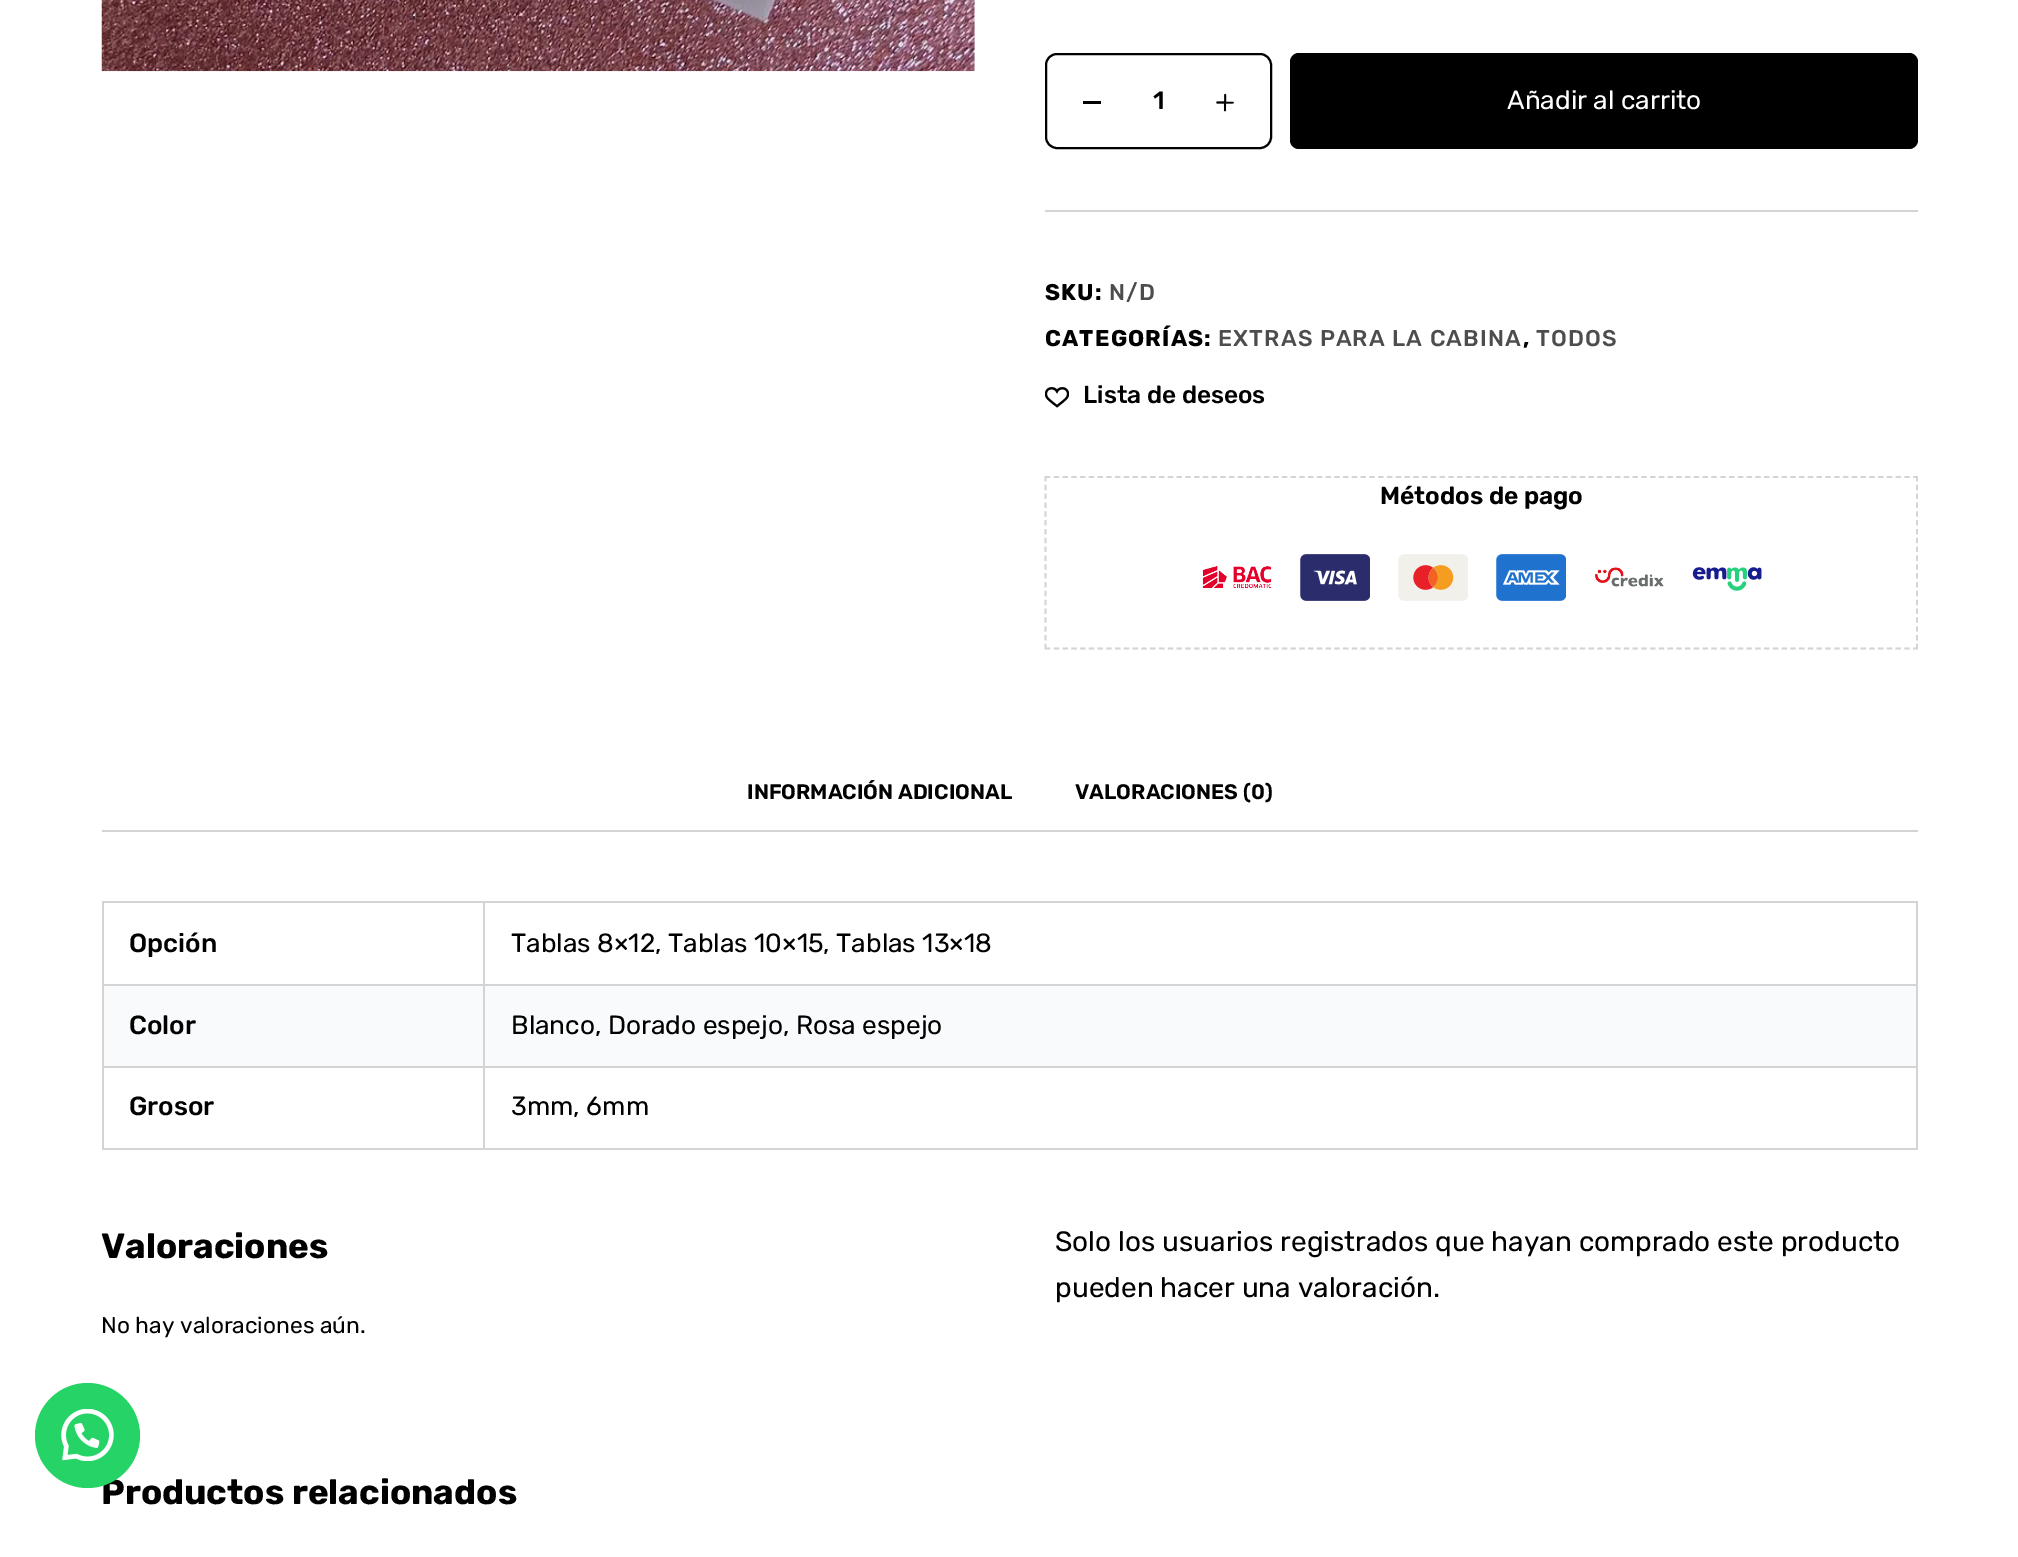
%!PS
<< /PageSize [2018 1557] >> setpagedevice
/rgb { 3 { 255 div 3 1 roll } repeat setrgbcolor } def
/font { [ exch dup neg 0 0 3 -1 roll 0 0 ] selectfont } def
/text { moveto show } def
/circle { newpath 0 360 arc closepath } def
/roundrect { 5 dict begin { /r /h /w /y /x } { exch def } forall
  x r add y moveto x w add y 2 copy h add r arct x w add y h add x 1 index r arct
  x y h add x y r arct x y 2 copy exch w add exch r arct closepath end } def
/picture { 5 dict begin { /h /w /y /x /name } { exch def } forall
  gsave x y translate w h scale
  w h 8 [w 0 0 h 0 0] name (r) file false 3 colorimage grestore end } def
0 1557 translate 1 -1 scale
4 setmiterlimit
255 255 255 rgb
0 0 2018 1557 rectfill
(img_02.rgb) 101 0 874 72 picture
0 0 0 rgb
2 setlinewidth
1046 54 225 94 11 roundrect stroke
1083 101 18 3 rectfill
(img_03.rgb) 1216 93 18 19 picture
1290 53 628 96 9 roundrect fill
212 212 212 rgb
1045 210 873 2 rectfill
(img_04.rgb) 1045 387 24 21 picture
1.8 setlinewidth
[5.25 3.52] 0 setdash
1045 477 moveto 873 0 rlineto stroke
[5.25 3.59] 0 setdash
1917 476 moveto 0 173 rlineto stroke
[5.25 3.52] 0 setdash
1045 648.5 moveto 873 0 rlineto stroke
[5.25 3.59] 0 setdash
1045.5 476 moveto 0 173 rlineto stroke
(img_05.rgb) 1202 566 70 23 picture
(img_06.rgb) 1300 554 70 47 picture
(img_07.rgb) 1398 554 70 47 picture
(img_08.rgb) 1496 554 70 47 picture
(img_09.rgb) 1595 567 69 20 picture
(img_10.rgb) 1692 567 70 24 picture
102 830 1816 2 rectfill
102 901 1816 2 rectfill
1916 901 2 249 rectfill
102 1148 1816 2 rectfill
102 901 2 249 rectfill
483 984 1435 2 rectfill
483 1066 1435 2 rectfill
483 1066 2 84 rectfill
102 1066 383 2 rectfill
483 984 2 84 rectfill
102 984 383 2 rectfill
483 901 2 84 rectfill
249 250 251 rgb
104 986 379 80 rectfill
485 986 1431 80 rectfill
/Rubik-Medium 25 font
0 0 0 rgb
(1) 1153 109 text
/Rubik-Regular 26.25 font
255 255 255 rgb
(Añadir al carrito) 1507 109 text
/Rubik-Bold 22.75 font
0 0 0 rgb
1045 300 moveto 1.1 0 (SKU:) ashow
/Rubik-Medium 22.75 font
77 77 77 rgb
1109 300 moveto 1.1 0 (N/D) ashow
/Rubik-Bold 22.75 font
0 0 0 rgb
1045 346 moveto 1.1 0 (CATEGORÍAS:) ashow
/Rubik-Medium 22.75 font
77 77 77 rgb
1218 346 moveto 1.1 0 (EXTRAS PARA LA CABINA) ashow
/Rubik-Bold 22.75 font
0 0 0 rgb
1523 346 moveto 1.1 0 (,) ashow
/Rubik-Medium 22.75 font
77 77 77 rgb
1536 346 moveto 1.1 0 (TODOS) ashow
/Rubik-Medium 24.5 font
0 0 0 rgb
(Lista de deseos) 1083 403 text
/Rubik-SemiBold 24.5 font
(Métodos de pago) 1380 504 text
/Rubik-SemiBold 21 font
(INFORMACIÓN ADICIONAL) 747 799 text
(VALORACIONES \(0\)) 1075 799 text
/Rubik-Medium 26.25 font
(Opción) 129 952 text
/Rubik-Regular 26.25 font
(Tablas 8×12, Tablas 10×15, Tablas 13×18) 511 952 text
/Rubik-Medium 26.25 font
(Color) 129 1034 text
/Rubik-Regular 26.25 font
(Blanco, Dorado espejo, Rosa espejo) 511 1034 text
/Rubik-Medium 26.25 font
(Grosor) 129 1115 text
/Rubik-Regular 26.25 font
(3mm, 6mm) 511 1115 text
/Rubik-Bold 35 font
(Valoraciones) 101 1258 text
/Rubik-Regular 22.75 font
(No hay valoraciones aún.) 101 1333 text
/Rubik-Regular 28 font
(Solo los usuarios registrados que hayan comprado este producto) 1055 1251 text
(pueden hacer una valoración.) 1055 1297 text
/Rubik-Bold 35 font
(Productos relacionados) 101 1504 text
37 211 102 rgb
87.5 1435.5 52.5 circle fill
(img_01.rgb) 61 1409 53 52 picture
showpage
